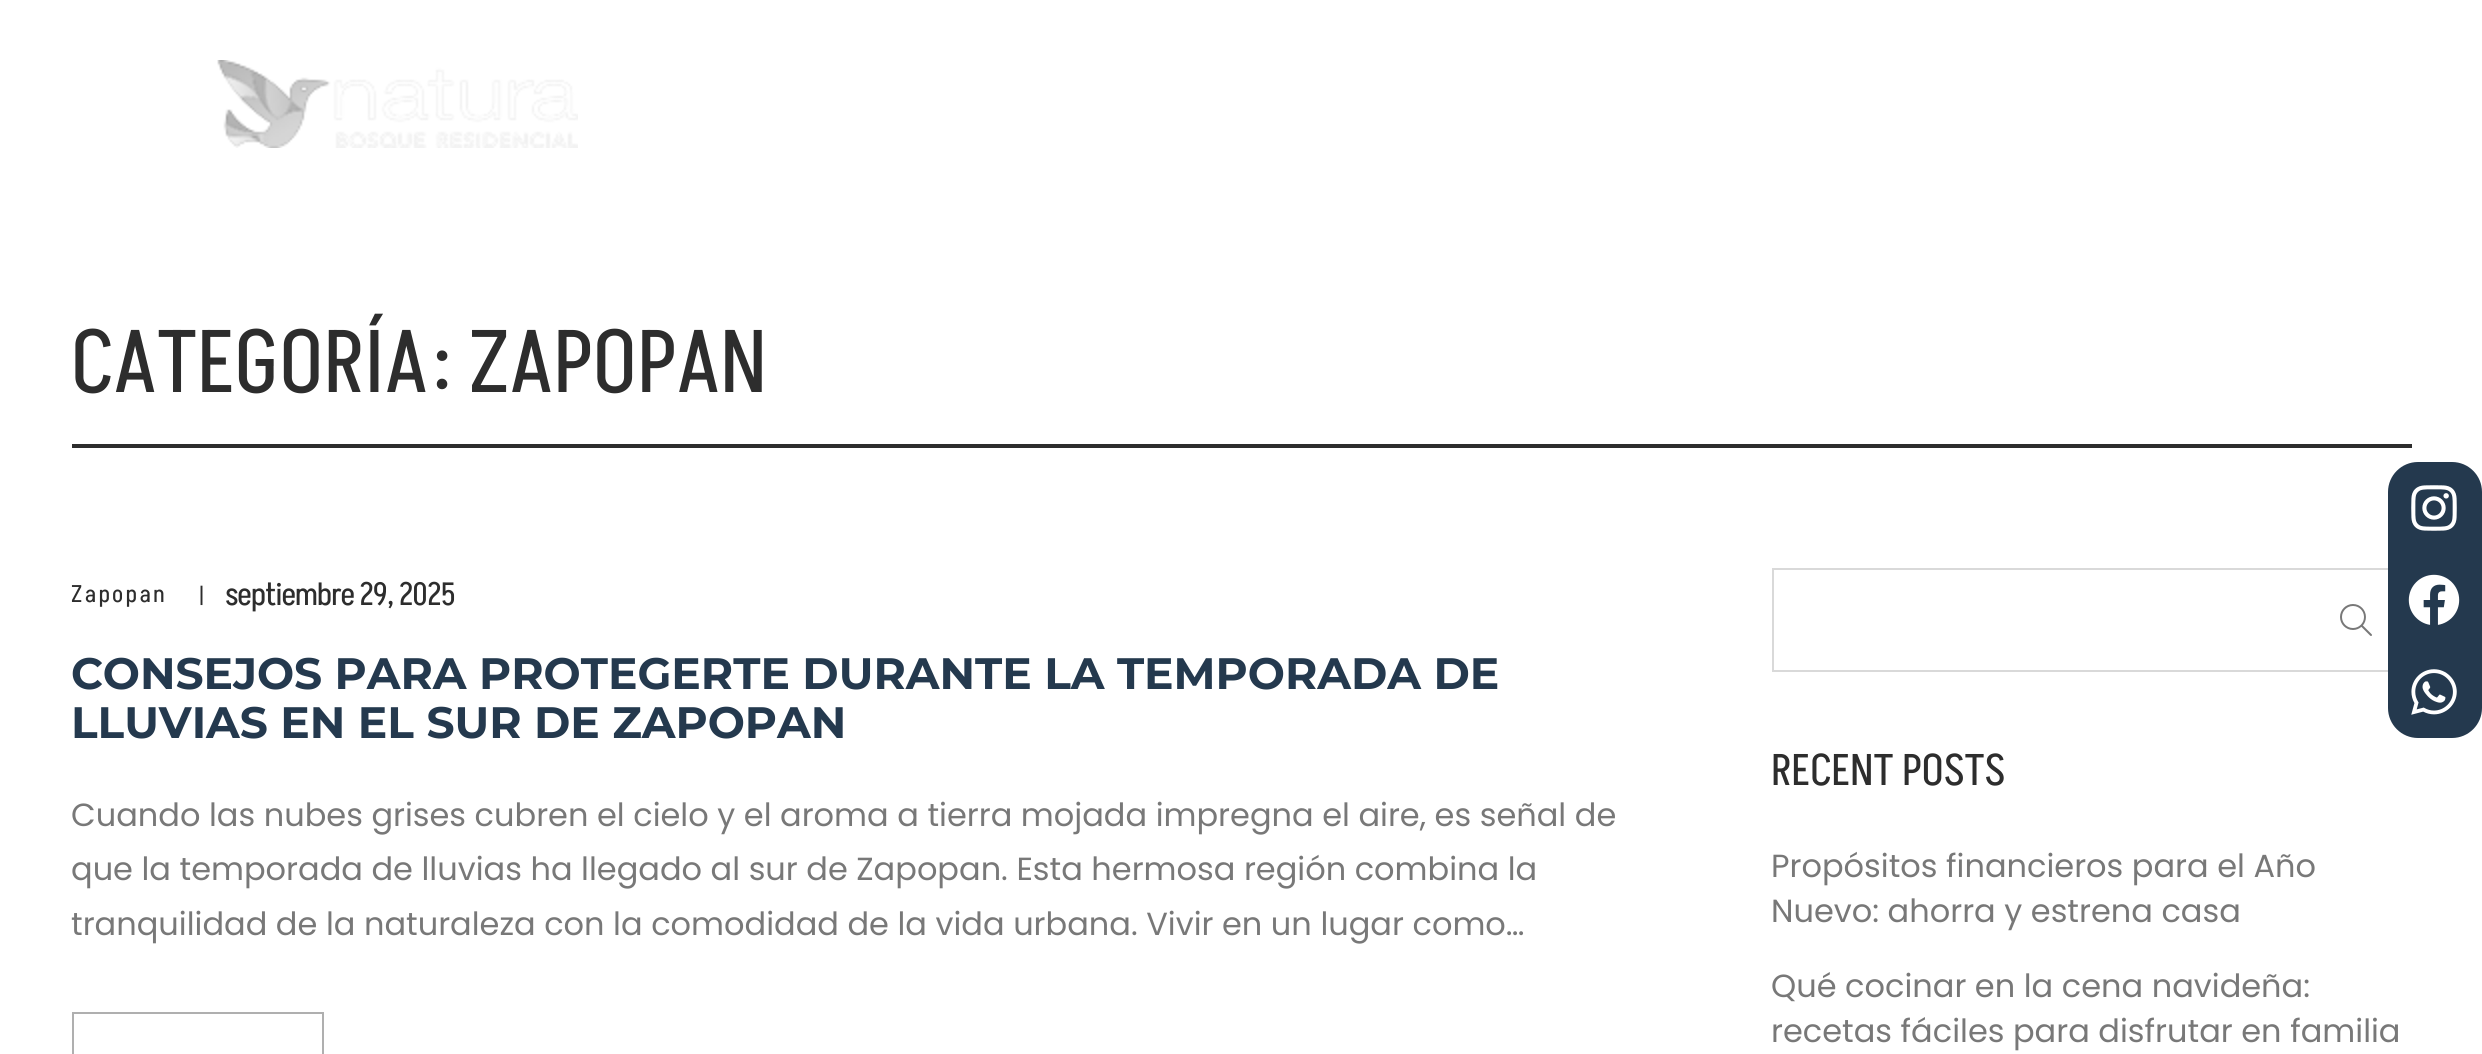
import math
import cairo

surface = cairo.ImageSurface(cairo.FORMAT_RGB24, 2482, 1054)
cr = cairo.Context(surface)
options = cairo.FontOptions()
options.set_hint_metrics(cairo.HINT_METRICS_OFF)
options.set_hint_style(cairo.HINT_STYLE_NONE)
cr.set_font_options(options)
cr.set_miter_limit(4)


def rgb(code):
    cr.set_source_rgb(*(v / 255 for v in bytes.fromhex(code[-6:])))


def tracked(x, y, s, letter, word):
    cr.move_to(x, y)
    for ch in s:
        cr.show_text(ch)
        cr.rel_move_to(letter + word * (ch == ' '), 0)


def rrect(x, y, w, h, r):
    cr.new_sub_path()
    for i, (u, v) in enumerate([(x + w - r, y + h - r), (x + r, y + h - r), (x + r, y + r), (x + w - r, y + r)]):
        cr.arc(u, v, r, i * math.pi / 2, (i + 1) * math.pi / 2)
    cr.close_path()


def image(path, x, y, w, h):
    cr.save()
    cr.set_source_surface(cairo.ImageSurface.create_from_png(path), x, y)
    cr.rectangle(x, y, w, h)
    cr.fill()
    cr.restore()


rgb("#ffffff")
cr.paint()
image("img/1.png", 217, 60, 361, 88)
rgb("#2d2d2d")
cr.rectangle(72, 444, 2340, 4)
cr.fill()
cr.rectangle(73, 1013, 250, 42)
rgb("#afafaf")
cr.stroke()
cr.rectangle(1773, 569, 638, 102)
rgb("#d9d9d9")
cr.stroke()
image("img/2.png", 2340, 604, 32, 32)
rgb("#24394e")
rrect(2388, 462, 94, 276, 30)
cr.fill()
image("img/3.png", 2411, 485, 46, 46)
image("img/4.png", 2408, 574, 52, 51)
image("img/5.png", 2411, 669, 46, 46)
cr.select_font_face("Akshar")
cr.set_font_size(88)
rgb("#2d2d2d")
cr.move_to(71, 392)
cr.show_text("CATEGORÍA: ZAPOPAN")
cr.set_font_size(24)
tracked(71, 602, "Zapopan", 2.5, 0)
cr.set_font_size(22)
tracked(199, 603, "|", -1, 0)
cr.set_font_size(32)
tracked(225, 605, "septiembre 29, 2025", -1, 0)
cr.select_font_face("Montserrat", cairo.FONT_SLANT_NORMAL, cairo.FONT_WEIGHT_BOLD)
cr.set_font_size(44)
rgb("#24394e")
cr.move_to(71, 689)
cr.show_text("CONSEJOS PARA PROTEGERTE DURANTE LA TEMPORADA DE")
cr.move_to(71, 738)
cr.show_text("LLUVIAS EN EL SUR DE ZAPOPAN")
cr.select_font_face("Poppins")
cr.set_font_size(32)
rgb("#787878")
for x, y, s in [
    (71, 826, "Cuando las nubes grises cubren el cielo y el aroma a tierra mojada impregna el aire, es señal de"),
    (71, 880, "que la temporada de lluvias ha llegado al sur de Zapopan. Esta hermosa región combina la"),
    (71, 935, "tranquilidad de la naturaleza con la comodidad de la vida urbana. Vivir en un lugar como…"),
]:
    cr.move_to(x, y)
    cr.show_text(s)
cr.select_font_face("Akshar")
cr.set_font_size(44)
rgb("#2d2d2d")
cr.move_to(1771, 785)
cr.show_text("RECENT POSTS")
cr.select_font_face("Poppins")
cr.set_font_size(32)
rgb("#787878")
for x, y, s in [
    (1771, 877, "Propósitos financieros para el Año"),
    (1771, 922, "Nuevo: ahorra y estrena casa"),
    (1771, 997, "Qué cocinar en la cena navideña:"),
    (1771, 1042, "recetas fáciles para disfrutar en familia"),
]:
    cr.move_to(x, y)
    cr.show_text(s)
surface.write_to_png("page.png")
